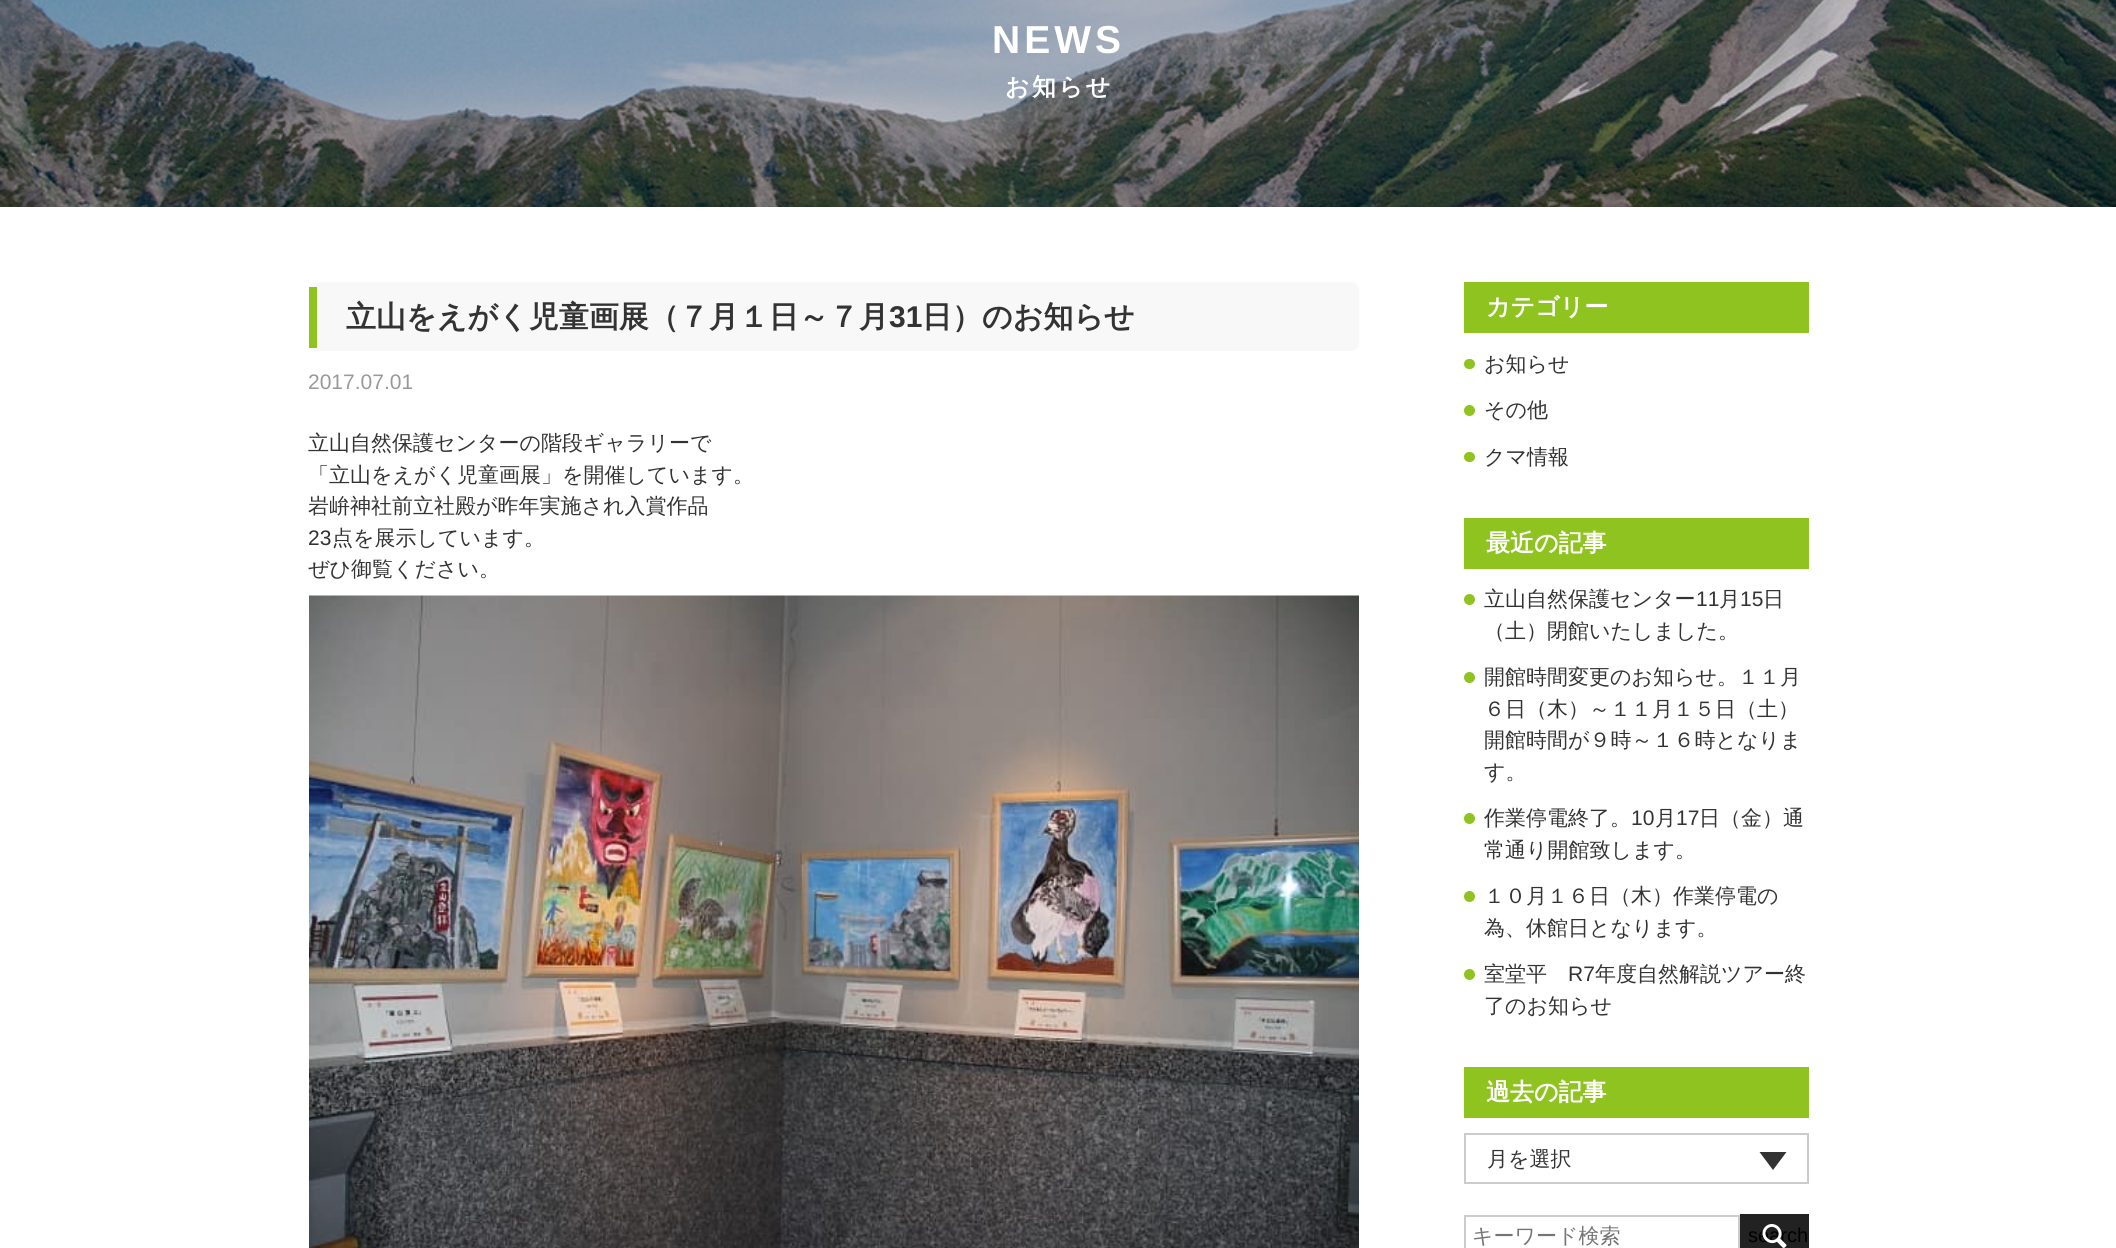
import math
import cairo

surface = cairo.ImageSurface(cairo.FORMAT_RGB24, 2116, 1248)
cr = cairo.Context(surface)
options = cairo.FontOptions()
options.set_hint_metrics(cairo.HINT_METRICS_OFF)
options.set_hint_style(cairo.HINT_STYLE_NONE)
cr.set_font_options(options)
cr.set_miter_limit(4)


def rgb(code):
    cr.set_source_rgb(*(v / 255 for v in bytes.fromhex(code[-6:])))


def tracked(x, y, s, letter, word):
    cr.move_to(x, y)
    for ch in s:
        cr.show_text(ch)
        cr.rel_move_to(letter + word * (ch == ' '), 0)


def rrect(x, y, w, h, r):
    cr.new_sub_path()
    for i, (u, v) in enumerate([(x + w - r, y + h - r), (x + r, y + h - r), (x + r, y + r), (x + w - r, y + r)]):
        cr.arc(u, v, r, i * math.pi / 2, (i + 1) * math.pi / 2)
    cr.close_path()


def image(path, x, y, w, h):
    cr.save()
    cr.set_source_surface(cairo.ImageSurface.create_from_png(path), x, y)
    cr.rectangle(x, y, w, h)
    cr.fill()
    cr.restore()


rgb("#ffffff")
cr.paint()
image("img/1.png", 0, 0, 2116, 207)
rgb("#f8f8f8")
rrect(309, 282, 1050, 69, 8)
cr.fill()
rgb("#8fc31f")
cr.rectangle(309, 287, 8, 61)
cr.fill()
image("img/2.png", 309, 595, 1050, 653)
cr.rectangle(1464, 282, 345, 51)
cr.fill()
rrect(1464, 359, 11, 10, 5)
cr.fill()
cr.arc(1469.5, 410.5, 5.5, 0, 2 * math.pi)
cr.fill()
rrect(1464, 452, 11, 10, 5)
cr.fill()
cr.rectangle(1464, 518, 345, 51)
cr.fill()
cr.arc(1469.5, 599.5, 5.5, 0, 2 * math.pi)
cr.fill()
cr.arc(1469.5, 677.5, 5.5, 0, 2 * math.pi)
cr.fill()
cr.arc(1469.5, 818.5, 5.5, 0, 2 * math.pi)
cr.fill()
cr.arc(1469.5, 896.5, 5.5, 0, 2 * math.pi)
cr.fill()
cr.arc(1469.5, 974.5, 5.5, 0, 2 * math.pi)
cr.fill()
cr.rectangle(1464, 1067, 345, 51)
cr.fill()
cr.rectangle(1465, 1134, 343, 49)
rgb("#cccccc")
cr.stroke()
rgb("#333333")
cr.new_path()
cr.move_to(1759.5, 1152)
cr.line_to(1786.5, 1152)
cr.line_to(1773, 1170)
cr.close_path()
cr.fill()
cr.rectangle(1465, 1216, 274, 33)
rgb("#cccccc")
cr.stroke()
rgb("#222222")
cr.rectangle(1740, 1214, 69, 34)
cr.fill()
cr.select_font_face("Liberation Sans", cairo.FONT_SLANT_NORMAL, cairo.FONT_WEIGHT_BOLD)
cr.set_font_size(39)
rgb("#ffffff")
tracked(992, 53, "NEWS", 4, 0)
cr.select_font_face("WenQuanYi Zen Hei", cairo.FONT_SLANT_NORMAL, cairo.FONT_WEIGHT_BOLD)
cr.set_font_size(24)
tracked(1005, 95, "お知らせ", 2.5, 0)
cr.set_font_size(30)
rgb("#333333")
cr.move_to(346, 327)
cr.show_text("立山をえがく児童画展（７月１日～７月")
cr.select_font_face("Liberation Sans", cairo.FONT_SLANT_NORMAL, cairo.FONT_WEIGHT_BOLD)
cr.move_to(889, 327)
cr.show_text("31")
cr.select_font_face("WenQuanYi Zen Hei", cairo.FONT_SLANT_NORMAL, cairo.FONT_WEIGHT_BOLD)
cr.move_to(922, 327)
cr.show_text("日）のお知らせ")
cr.select_font_face("Liberation Sans")
cr.set_font_size(21)
rgb("#999999")
cr.move_to(308, 389)
cr.show_text("2017.07.01")
cr.select_font_face("WenQuanYi Zen Hei Medium")
rgb("#333333")
for x, y, s in [
    (308, 450, "立山自然保護センターの階段ギャラリーで"),
    (308, 482, "「立山をえがく児童画展」を開催しています。"),
    (308, 513, "岩峅神社前立社殿が昨年実施され入賞作品"),
]:
    cr.move_to(x, y)
    cr.show_text(s)
cr.select_font_face("Liberation Sans")
cr.move_to(308, 545)
cr.show_text("23")
cr.select_font_face("WenQuanYi Zen Hei Medium")
cr.move_to(332, 545)
cr.show_text("点を展示しています。")
cr.move_to(308, 576)
cr.show_text("ぜひ御覧ください。")
cr.select_font_face("WenQuanYi Zen Hei", cairo.FONT_SLANT_NORMAL, cairo.FONT_WEIGHT_BOLD)
cr.set_font_size(24)
rgb("#ffffff")
cr.move_to(1486, 315)
cr.show_text("カテゴリー")
cr.select_font_face("WenQuanYi Zen Hei Medium")
cr.set_font_size(21)
rgb("#333333")
for x, y, s in [
    (1484, 371, "お知らせ"),
    (1484, 417, "その他"),
    (1484, 464, "クマ情報"),
]:
    cr.move_to(x, y)
    cr.show_text(s)
cr.select_font_face("WenQuanYi Zen Hei", cairo.FONT_SLANT_NORMAL, cairo.FONT_WEIGHT_BOLD)
cr.set_font_size(24)
rgb("#ffffff")
cr.move_to(1486, 551)
cr.show_text("最近の記事")
cr.select_font_face("WenQuanYi Zen Hei Medium")
cr.set_font_size(21)
rgb("#333333")
cr.move_to(1484, 606)
cr.show_text("立山自然保護センター")
cr.select_font_face("Liberation Sans")
cr.move_to(1696, 606)
cr.show_text("11")
cr.select_font_face("WenQuanYi Zen Hei Medium")
cr.move_to(1719, 606)
cr.show_text("月")
cr.select_font_face("Liberation Sans")
cr.move_to(1740, 606)
cr.show_text("15")
cr.select_font_face("WenQuanYi Zen Hei Medium")
for x, y, s in [
    (1763, 606, "日"),
    (1484, 638, "（土）閉館いたしました。"),
    (1484, 684, "開館時間変更のお知らせ。１１月"),
    (1484, 716, "６日（木）～１１月１５日（土）"),
    (1484, 747, "開館時間が９時～１６時となりま"),
    (1484, 779, "す。"),
    (1484, 825, "作業停電終了。"),
]:
    cr.move_to(x, y)
    cr.show_text(s)
cr.select_font_face("Liberation Sans")
cr.move_to(1631, 825)
cr.show_text("10")
cr.select_font_face("WenQuanYi Zen Hei Medium")
cr.move_to(1655, 825)
cr.show_text("月")
cr.select_font_face("Liberation Sans")
cr.move_to(1676, 825)
cr.show_text("17")
cr.select_font_face("WenQuanYi Zen Hei Medium")
for x, y, s in [
    (1699, 825, "日（金）通"),
    (1484, 857, "常通り開館致します。"),
    (1484, 903, "１０月１６日（木）作業停電の"),
    (1484, 935, "為、休館日となります。"),
    (1484, 981, "室堂平"),
]:
    cr.move_to(x, y)
    cr.show_text(s)
cr.select_font_face("Liberation Sans")
cr.move_to(1568, 981)
cr.show_text("R7")
cr.select_font_face("WenQuanYi Zen Hei Medium")
cr.move_to(1595, 981)
cr.show_text("年度自然解説ツアー終")
cr.move_to(1484, 1013)
cr.show_text("了のお知らせ")
cr.select_font_face("WenQuanYi Zen Hei", cairo.FONT_SLANT_NORMAL, cairo.FONT_WEIGHT_BOLD)
cr.set_font_size(24)
rgb("#ffffff")
cr.move_to(1486, 1100)
cr.show_text("過去の記事")
cr.select_font_face("WenQuanYi Zen Hei Medium")
cr.set_font_size(21)
rgb("#333333")
cr.move_to(1487, 1166)
cr.show_text("月を選択")
rgb("#757575")
cr.move_to(1472, 1243)
cr.show_text("キーワード検索")
cr.select_font_face("Liberation Sans")
cr.set_font_size(20)
rgb("#000000")
cr.move_to(1748, 1242)
cr.show_text("search")
image("img/3.png", 1762, 1224, 25, 24)
surface.write_to_png("page.png")
